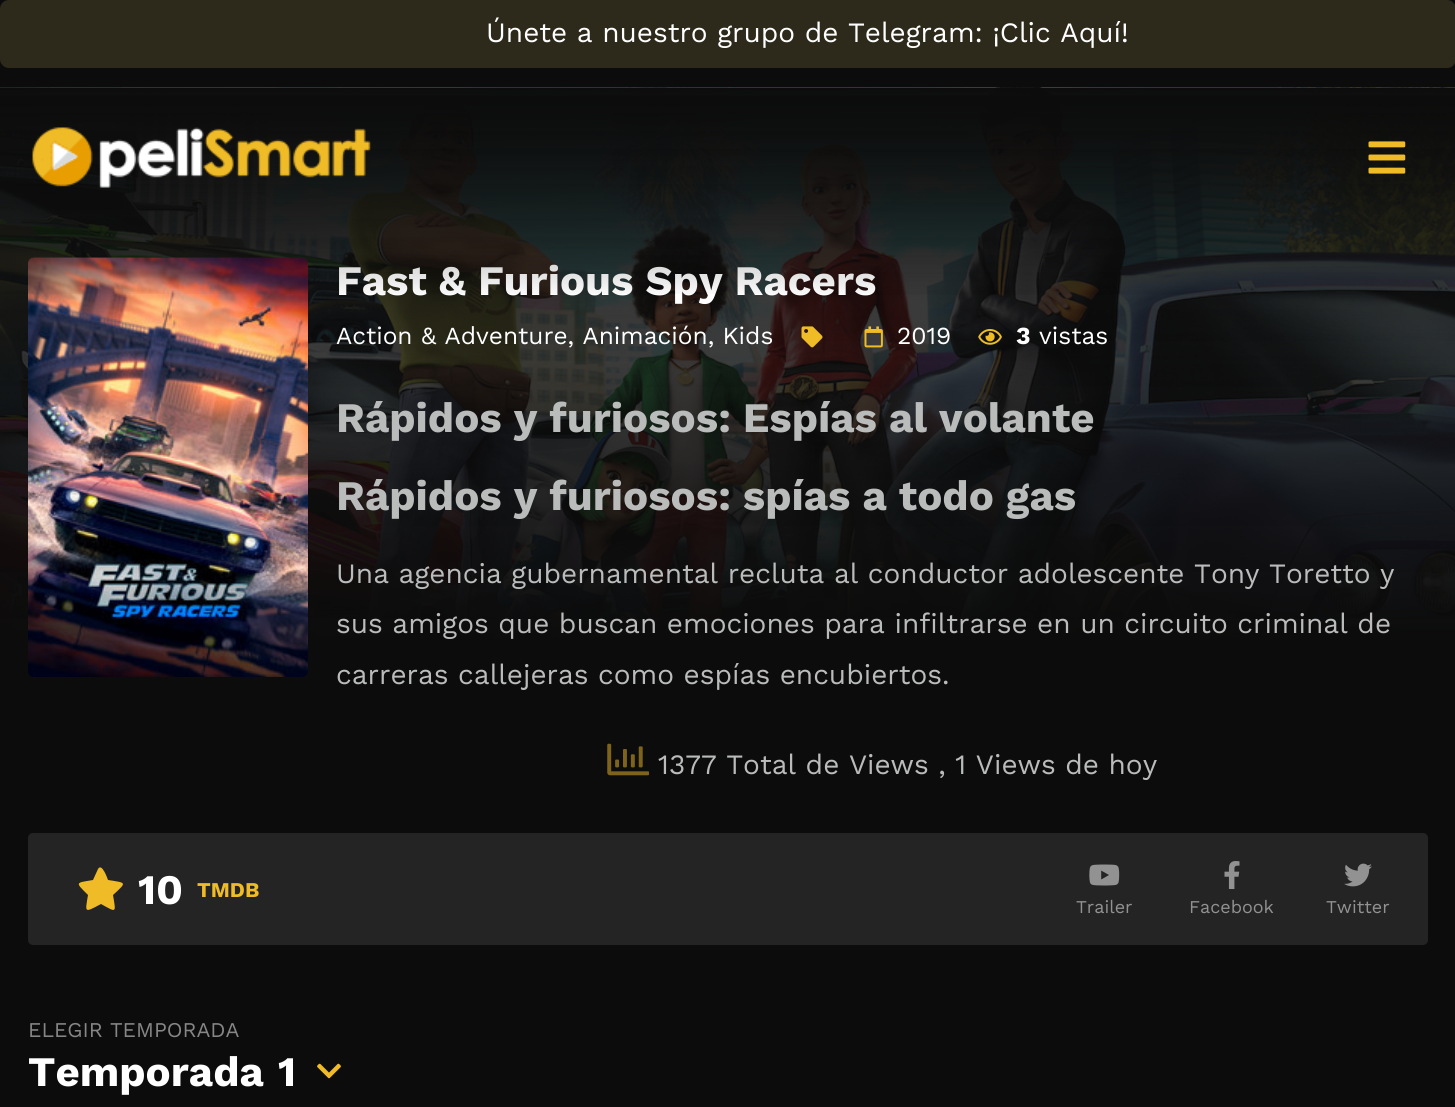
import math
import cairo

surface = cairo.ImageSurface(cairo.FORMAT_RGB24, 1455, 1107)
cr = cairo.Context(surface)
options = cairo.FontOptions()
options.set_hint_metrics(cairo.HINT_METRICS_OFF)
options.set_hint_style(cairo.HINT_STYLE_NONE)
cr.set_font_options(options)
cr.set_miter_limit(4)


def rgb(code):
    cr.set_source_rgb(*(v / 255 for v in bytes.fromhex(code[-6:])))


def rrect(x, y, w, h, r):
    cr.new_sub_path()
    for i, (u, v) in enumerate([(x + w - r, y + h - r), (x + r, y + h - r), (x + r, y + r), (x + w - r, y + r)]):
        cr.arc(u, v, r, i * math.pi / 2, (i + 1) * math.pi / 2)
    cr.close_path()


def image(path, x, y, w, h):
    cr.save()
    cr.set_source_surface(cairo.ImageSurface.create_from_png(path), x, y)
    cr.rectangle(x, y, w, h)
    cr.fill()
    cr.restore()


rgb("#0c0c0c")
cr.paint()
rgb("#2d2a1b")
rrect(0, 0, 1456, 68, 9)
cr.fill()
image("img/1.png", 0, 87, 1455, 551)
gradient = cairo.LinearGradient(728, 87, 728, 368)
gradient.add_color_stop_rgba(0, 0.047, 0.047, 0.047, 1)
gradient.add_color_stop_rgba(1, 0.047, 0.047, 0.047, 0)
cr.set_source(gradient)
cr.rectangle(0, 88, 1455, 273)
cr.fill()
gradient = cairo.LinearGradient(728, 87, 728, 641)
gradient.add_color_stop_rgba(0, 0.047, 0.047, 0.047, 0)
gradient.add_color_stop_rgba(1, 0.047, 0.047, 0.047, 1)
cr.set_source(gradient)
cr.rectangle(0, 148, 1455, 490)
cr.fill()
image("img/4.png", 28, 257, 280, 420)
image("img/5.png", 801, 326, 22, 22)
image("img/6.png", 864, 326, 19, 22)
image("img/7.png", 978, 329, 24, 16)
image("img/8.png", 607, 743, 42, 33)
rgb("#242424")
rrect(28, 833, 1400, 112, 5)
cr.fill()
rgb("#efbb26")
cr.new_path()
cr.move_to(98, 869)
cr.curve_to(102, 862, 108, 880, 108, 880)
cr.curve_to(127, 883, 127, 882, 113, 895)
cr.curve_to(116, 913, 117, 913, 101, 904)
cr.curve_to(84, 913, 85, 913, 88, 895)
cr.curve_to(75, 882, 75, 883, 93, 880)
cr.close_path()
cr.fill()
image("img/9.png", 1089, 864, 31, 22)
image("img/10.png", 1224, 861, 16, 28)
image("img/11.png", 1344, 863, 28, 24)
image("img/12.png", 317, 1063, 24, 16)
cr.select_font_face("Work Sans")
cr.set_font_size(28)
rgb("#ffffff")
cr.move_to(486, 42)
cr.show_text("Únete a nuestro grupo de Telegram: ¡Clic Aquí!")
cr.select_font_face("Work Sans", cairo.FONT_SLANT_NORMAL, cairo.FONT_WEIGHT_BOLD)
cr.set_font_size(42)
cr.move_to(336, 295)
cr.show_text("Fast & Furious Spy Racers")
gradient = cairo.LinearGradient(728, 87, 728, 299)
gradient.add_color_stop_rgba(0, 0.047, 0.047, 0.047, 1)
gradient.add_color_stop_rgba(1, 0.047, 0.047, 0.047, 0)
cr.set_source(gradient)
cr.rectangle(0, 95, 1455, 199)
cr.fill()
image("img/3.png", 1368, 141, 38, 33)
image("img/2.png", 32, 127, 339, 61)
cr.select_font_face("Work Sans")
cr.set_font_size(24.5)
rgb("#ffffff")
cr.move_to(336, 344)
cr.show_text("Action & Adventure, Animación, Kids")
cr.move_to(897, 344)
cr.show_text("2019")
cr.select_font_face("Work Sans", cairo.FONT_SLANT_NORMAL, cairo.FONT_WEIGHT_BOLD)
cr.move_to(1016, 344)
cr.show_text("3")
cr.select_font_face("Work Sans")
cr.move_to(1039, 344)
cr.show_text("vistas")
cr.select_font_face("Work Sans", cairo.FONT_SLANT_NORMAL, cairo.FONT_WEIGHT_BOLD)
cr.set_font_size(42)
rgb("#babbbb")
cr.move_to(336, 432)
cr.show_text("Rápidos y furiosos: Espías al volante")
cr.move_to(336, 510)
cr.show_text("Rápidos y furiosos: spías a todo gas")
cr.select_font_face("Work Sans")
cr.set_font_size(28)
for x, y, s in [
    (336, 583, "Una agencia gubernamental recluta al conductor adolescente Tony Toretto y"),
    (336, 633, "sus amigos que buscan emociones para infiltrarse en un circuito criminal de"),
    (336, 684, "carreras callejeras como espías encubiertos."),
    (658, 774, "1377 Total de Views , 1 Views de hoy"),
]:
    cr.move_to(x, y)
    cr.show_text(s)
cr.select_font_face("Work Sans", cairo.FONT_SLANT_NORMAL, cairo.FONT_WEIGHT_BOLD)
cr.set_font_size(42)
rgb("#ffffff")
cr.move_to(138, 904)
cr.show_text("10")
cr.set_font_size(21)
rgb("#efbb26")
cr.move_to(197, 897)
cr.show_text("TMDB")
cr.select_font_face("Work Sans")
cr.set_font_size(18)
rgb("#929292")
for x, y, s in [
    (1076, 913, "Trailer"),
    (1189, 913, "Facebook"),
    (1326, 913, "Twitter"),
]:
    cr.move_to(x, y)
    cr.show_text(s)
cr.set_font_size(21)
rgb("#868686")
cr.move_to(28, 1037)
cr.show_text("ELEGIR TEMPORADA")
cr.select_font_face("Work Sans", cairo.FONT_SLANT_NORMAL, cairo.FONT_WEIGHT_BOLD)
cr.set_font_size(42)
rgb("#ffffff")
cr.move_to(28, 1086)
cr.show_text("Temporada")
cr.move_to(278, 1086)
cr.show_text("1")
surface.write_to_png("page.png")
